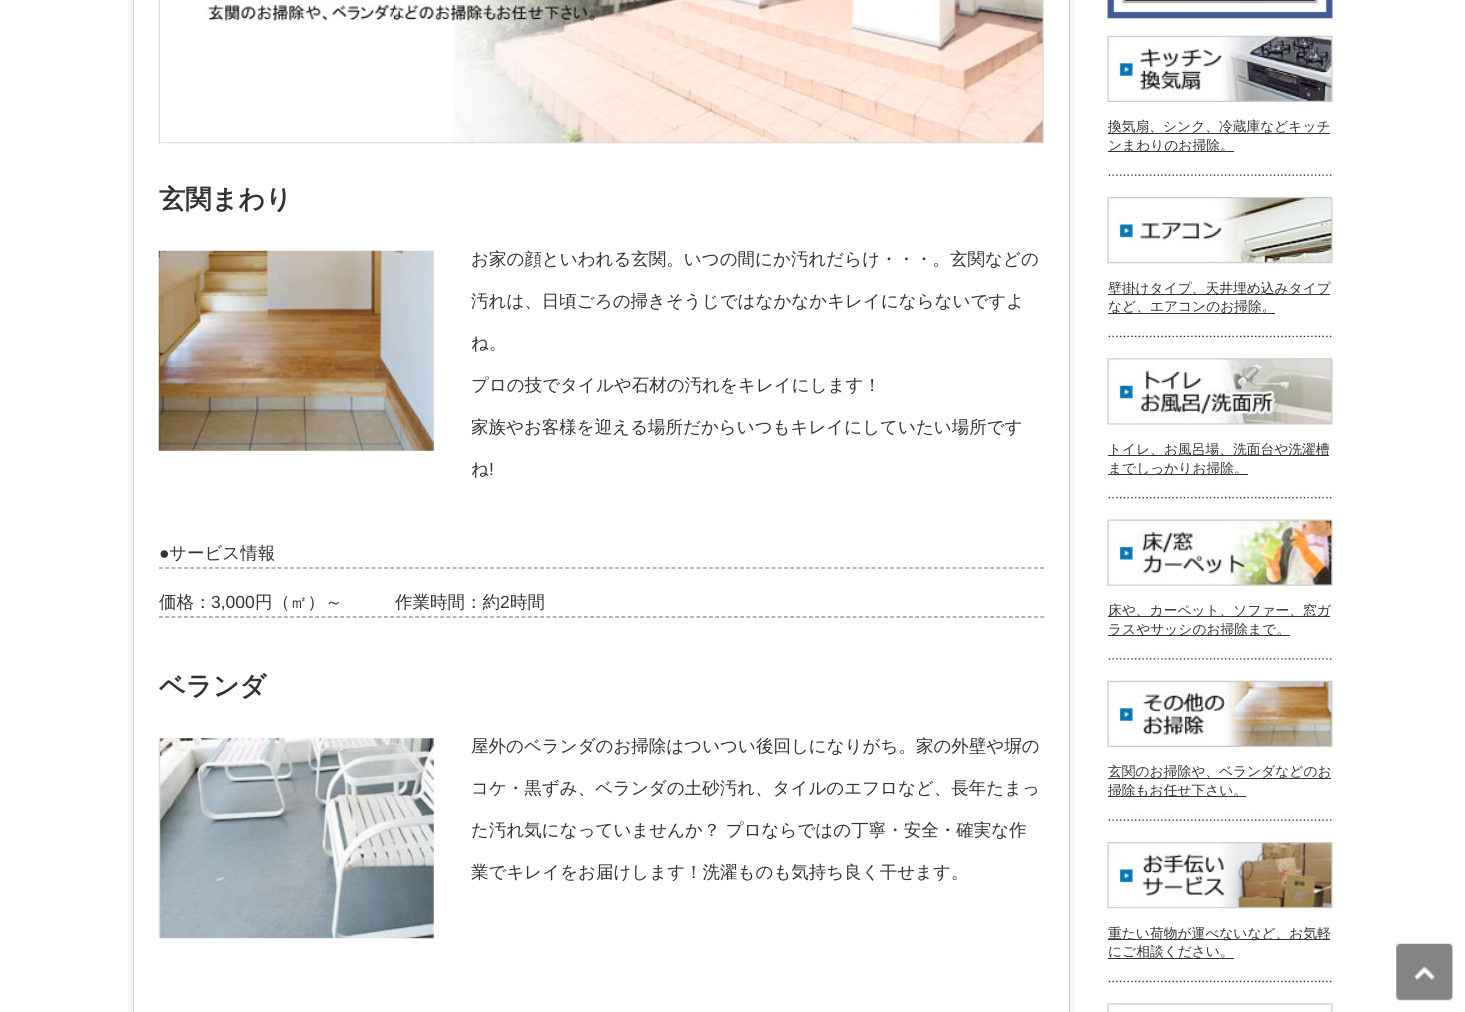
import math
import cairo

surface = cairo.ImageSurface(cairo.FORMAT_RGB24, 1465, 1012)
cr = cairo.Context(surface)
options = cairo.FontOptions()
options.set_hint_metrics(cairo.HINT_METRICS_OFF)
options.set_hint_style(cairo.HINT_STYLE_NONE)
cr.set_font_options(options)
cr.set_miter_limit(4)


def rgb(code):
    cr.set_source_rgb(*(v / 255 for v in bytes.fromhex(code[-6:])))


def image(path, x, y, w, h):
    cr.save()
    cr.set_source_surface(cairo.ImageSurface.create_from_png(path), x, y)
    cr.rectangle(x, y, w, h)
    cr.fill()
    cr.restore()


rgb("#ffffff")
cr.paint()
cr.rectangle(130.5, -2.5, 942, 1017)
rgb("#f7f7f7")
cr.set_line_width(5)
cr.stroke()
cr.rectangle(133.5, -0.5, 936, 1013)
rgb("#cccccc")
cr.set_line_width(1)
cr.stroke()
image("img/1.png", 158, 0, 886, 144)
image("img/2.png", 158, 250, 276, 201)
cr.new_path()
cr.move_to(159, 568)
cr.line_to(1044, 568)
rgb("#838282")
cr.set_line_width(1.2)
cr.set_dash([3.75, 2.5])
cr.stroke()
cr.new_path()
cr.move_to(159, 617)
cr.line_to(1044, 617)
cr.stroke()
image("img/3.png", 158, 738, 276, 201)
image("img/4.png", 1107, 0, 226, 19)
image("img/5.png", 1107, 35, 226, 67)
rgb("#333333")
cr.rectangle(1108, 133, 222, 1)
cr.fill()
cr.rectangle(1108, 151, 126, 1)
cr.fill()
image("img/6.png", 1107, 169, 225, 8)
image("img/7.png", 1107, 197, 226, 67)
cr.rectangle(1108, 294, 222, 1)
cr.fill()
cr.rectangle(1108, 313, 167, 1)
cr.fill()
image("img/8.png", 1107, 331, 225, 7)
image("img/9.png", 1107, 358, 226, 67)
cr.rectangle(1108, 455, 221, 1)
cr.fill()
cr.rectangle(1108, 474, 140, 1)
cr.fill()
image("img/10.png", 1107, 491, 225, 9)
image("img/11.png", 1107, 519, 226, 67)
cr.rectangle(1108, 616, 222, 1)
cr.fill()
cr.rectangle(1108, 635, 182, 1)
cr.fill()
image("img/12.png", 1107, 652, 225, 9)
image("img/13.png", 1107, 680, 226, 67)
cr.rectangle(1108, 778, 223, 1)
cr.fill()
cr.rectangle(1108, 796, 138, 1)
cr.fill()
image("img/6.png", 1107, 814, 225, 8)
image("img/14.png", 1107, 842, 226, 67)
cr.rectangle(1108, 939, 222, 1)
cr.fill()
cr.rectangle(1108, 958, 126, 1)
cr.fill()
image("img/8.png", 1107, 976, 225, 7)
image("img/15.png", 1107, 1003, 226, 9)
image("img/16.png", 1396, 943, 58, 58)
cr.select_font_face("WenQuanYi Zen Hei", cairo.FONT_SLANT_NORMAL, cairo.FONT_WEIGHT_BOLD)
cr.set_font_size(26.25)
cr.move_to(159, 208)
cr.show_text("玄関まわり")
cr.select_font_face("WenQuanYi Zen Hei Medium")
cr.set_font_size(17.5)
for x, y, s in [
    (471, 265, "お家の顔といわれる玄関。いつの間にか汚れだらけ・・・。玄関などの"),
    (471, 307, "汚れは、日頃ごろの掃きそうじではなかなかキレイにならないですよ"),
    (471, 349, "ね。"),
    (471, 391, "プロの技でタイルや石材の汚れをキレイにします！"),
    (471, 433, "家族やお客様を迎える場所だからいつもキレイにしていたい場所です"),
    (471, 475, "ね"),
]:
    cr.move_to(x, y)
    cr.show_text(s)
cr.select_font_face("Liberation Sans")
cr.move_to(489, 475)
cr.show_text("!")
cr.move_to(159, 559)
cr.show_text("●")
cr.select_font_face("WenQuanYi Zen Hei Medium")
cr.move_to(169, 559)
cr.show_text("サービス情報")
cr.move_to(159, 608)
cr.show_text("価格：")
cr.select_font_face("Liberation Sans")
cr.move_to(211, 608)
cr.show_text("3,000")
cr.select_font_face("WenQuanYi Zen Hei Medium")
cr.move_to(255, 608)
cr.show_text("円（㎡）～")
cr.move_to(395, 608)
cr.show_text("作業時間：約")
cr.select_font_face("Liberation Sans")
cr.move_to(500, 608)
cr.show_text("2")
cr.select_font_face("WenQuanYi Zen Hei Medium")
cr.move_to(510, 608)
cr.show_text("時間")
cr.select_font_face("WenQuanYi Zen Hei", cairo.FONT_SLANT_NORMAL, cairo.FONT_WEIGHT_BOLD)
cr.set_font_size(26.25)
cr.move_to(159, 695)
cr.show_text("ベランダ")
cr.select_font_face("WenQuanYi Zen Hei Medium")
cr.set_font_size(17.5)
for x, y, s in [
    (471, 752, "屋外のベランダのお掃除はついつい後回しになりがち。家の外壁や塀の"),
    (471, 794, "コケ・黒ずみ、ベランダの土砂汚れ、タイルのエフロなど、長年たまっ"),
    (471, 836, "た汚れ気になっていませんか？ プロならではの丁寧・安全・確実な作"),
    (471, 878, "業でキレイをお届けします！洗濯ものも気持ち良く干せます。"),
]:
    cr.move_to(x, y)
    cr.show_text(s)
cr.set_font_size(13.75)
for x, y, s in [
    (1108, 131, "換気扇、シンク、冷蔵庫などキッチ"),
    (1108, 150, "ンまわりのお掃除。"),
    (1108, 293, "壁掛けタイプ、天井埋め込みタイプ"),
    (1108, 311, "など、エアコンのお掃除。"),
    (1108, 454, "トイレ、お風呂場、洗面台や洗濯槽"),
    (1108, 473, "までしっかりお掃除。"),
    (1108, 615, "床や、カーペット、ソファー、窓ガ"),
    (1108, 634, "ラスやサッシのお掃除まで。"),
    (1108, 776, "玄関のお掃除や、ベランダなどのお"),
    (1108, 795, "掃除もお任せ下さい。"),
    (1108, 938, "重たい荷物が運べないなど、お気軽"),
    (1108, 956, "にご相談ください。"),
]:
    cr.move_to(x, y)
    cr.show_text(s)
surface.write_to_png("page.png")
